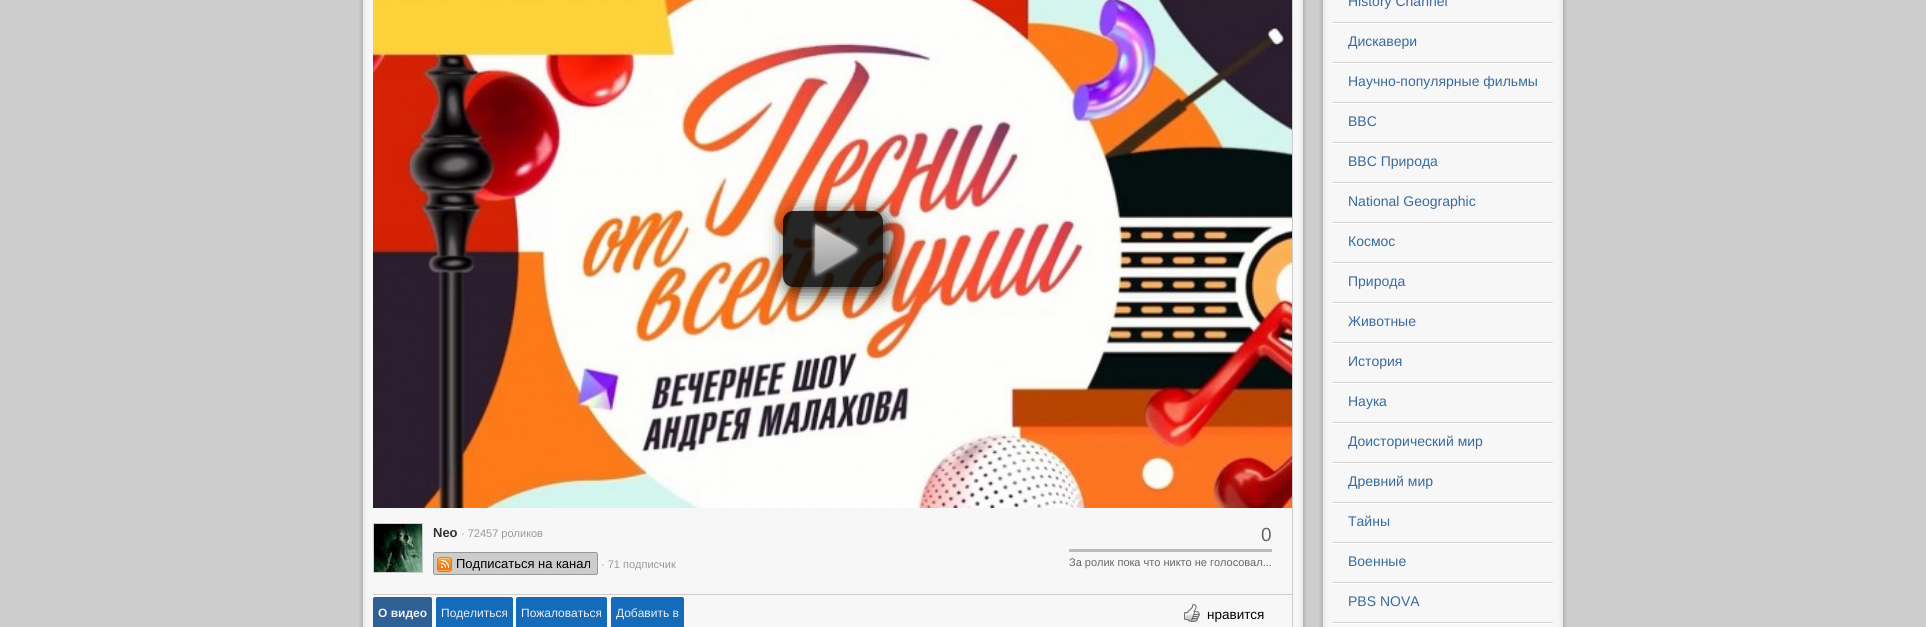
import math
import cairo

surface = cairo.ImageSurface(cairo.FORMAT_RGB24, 1926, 627)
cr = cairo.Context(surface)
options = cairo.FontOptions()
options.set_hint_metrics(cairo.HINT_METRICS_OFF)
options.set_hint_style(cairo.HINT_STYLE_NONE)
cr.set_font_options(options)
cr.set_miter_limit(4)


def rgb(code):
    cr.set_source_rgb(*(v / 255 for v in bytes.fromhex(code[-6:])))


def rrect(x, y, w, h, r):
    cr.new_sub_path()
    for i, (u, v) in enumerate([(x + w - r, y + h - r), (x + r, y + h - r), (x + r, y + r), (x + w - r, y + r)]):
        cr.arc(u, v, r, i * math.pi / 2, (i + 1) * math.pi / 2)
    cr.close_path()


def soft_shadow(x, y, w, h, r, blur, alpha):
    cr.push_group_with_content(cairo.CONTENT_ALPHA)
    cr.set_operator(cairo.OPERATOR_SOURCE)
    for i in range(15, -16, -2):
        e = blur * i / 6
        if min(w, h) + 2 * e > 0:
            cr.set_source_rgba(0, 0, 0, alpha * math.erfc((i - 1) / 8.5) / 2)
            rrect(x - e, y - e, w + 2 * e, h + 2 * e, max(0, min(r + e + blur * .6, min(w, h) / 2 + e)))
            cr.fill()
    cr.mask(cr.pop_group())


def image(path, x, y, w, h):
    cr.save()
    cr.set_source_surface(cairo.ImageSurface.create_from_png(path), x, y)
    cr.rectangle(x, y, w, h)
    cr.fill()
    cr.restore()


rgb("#cdcdcd")
cr.paint()
image("img/1.png", 1293, 0, 14, 627)
image("img/2.png", 359, 0, 933, 627)
image("img/3.png", 373, 0, 919, 508)
cr.save()
cr.set_fill_rule(cairo.FILL_RULE_EVEN_ODD)
cr.new_path()
cr.move_to(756, 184)
cr.line_to(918, 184)
cr.line_to(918, 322)
cr.line_to(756, 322)
cr.close_path()
cr.move_to(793, 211)
cr.line_to(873, 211)
cr.curve_to(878.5, 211, 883, 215.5, 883, 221)
cr.line_to(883, 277)
cr.curve_to(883, 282.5, 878.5, 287, 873, 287)
cr.line_to(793, 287)
cr.curve_to(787.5, 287, 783, 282.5, 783, 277)
cr.line_to(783, 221)
cr.curve_to(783, 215.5, 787.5, 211, 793, 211)
cr.close_path()
cr.clip()
rgb("#000000")
soft_shadow(787, 215, 100, 76, 10, 10, 0.85)
cr.restore()
cr.set_source_rgba(0, 0, 0, 0.85)
rrect(783, 211, 100, 76, 10)
cr.fill()
image("img/4.png", 811, 221, 50, 58)
cr.rectangle(373.5, 523.5, 49, 49)
rgb("#cccccc")
cr.set_line_width(1)
cr.stroke()
image("img/5.png", 374, 524, 48, 48)
rgb("#bbbbbb")
cr.rectangle(1069, 549, 203, 3)
cr.fill()
rgb("#cccccc")
cr.new_path()
cr.move_to(435, 552)
cr.line_to(591, 552)
cr.line_to(591, 575)
cr.line_to(435, 575)
cr.curve_to(434, 575, 433, 574, 433, 573)
cr.line_to(433, 554)
cr.curve_to(433, 553, 434, 552, 435, 552)
cr.close_path()
cr.fill()
image("img/6.png", 437, 557, 15, 15)
for x, y, w, h, color in [
    (434, 552, 157, 1, "#999999"),
    (434, 574, 157, 1, "#999999"),
    (433, 553, 1, 21, "#999999"),
]:
    rgb(color)
    cr.rectangle(x, y, w, h)
    cr.fill()
rgb("#cccccc")
cr.new_path()
cr.move_to(591, 552)
cr.line_to(596, 552)
cr.curve_to(597, 552, 598, 553, 598, 554)
cr.line_to(598, 573)
cr.curve_to(598, 574, 597, 575, 596, 575)
cr.line_to(591, 575)
cr.close_path()
cr.fill()
for x, y, w, h, color in [
    (591, 552, 6, 1, "#999999"),
    (597, 553, 1, 21, "#999999"),
    (591, 574, 6, 1, "#999999"),
    (373, 594, 919, 1, "#cccccc"),
]:
    rgb(color)
    cr.rectangle(x, y, w, h)
    cr.fill()
rgb("#2f6095")
rrect(373.5, 597.5, 58, 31, 1.5)
cr.fill_preserve()
cr.stroke()
rgb("#136bb9")
rrect(436.5, 597.5, 76, 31, 1.5)
cr.fill_preserve()
cr.stroke()
rrect(516.5, 597.5, 90, 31, 1.5)
cr.fill_preserve()
cr.stroke()
rrect(611.5, 597.5, 72, 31, 1.5)
cr.fill_preserve()
cr.stroke()
image("img/7.png", 1184, 604, 16, 18)
image("img/1.png", 1553, 0, 14, 627)
image("img/8.png", 1319, 0, 234, 627)
image("img/9.png", 1333, 22, 220, 2)
image("img/9.png", 1333, 62, 220, 2)
image("img/9.png", 1333, 102, 220, 2)
image("img/9.png", 1333, 142, 220, 2)
image("img/9.png", 1333, 182, 220, 2)
image("img/9.png", 1333, 222, 220, 2)
image("img/9.png", 1333, 262, 220, 2)
image("img/9.png", 1333, 302, 220, 2)
image("img/9.png", 1333, 342, 220, 2)
image("img/9.png", 1333, 382, 220, 2)
image("img/9.png", 1333, 422, 220, 2)
image("img/9.png", 1333, 462, 220, 2)
image("img/9.png", 1333, 502, 220, 2)
image("img/9.png", 1333, 542, 220, 2)
image("img/9.png", 1333, 582, 220, 2)
image("img/9.png", 1333, 622, 220, 2)
cr.select_font_face("Liberation Sans", cairo.FONT_SLANT_NORMAL, cairo.FONT_WEIGHT_BOLD)
cr.set_font_size(13)
rgb("#333333")
cr.move_to(433, 537)
cr.show_text("Neo")
cr.select_font_face("Liberation Sans")
cr.set_font_size(11)
rgb("#999999")
cr.move_to(461, 537)
cr.show_text("· 72457 роликов")
cr.set_font_size(19)
rgb("#666666")
cr.move_to(1261, 541)
cr.show_text("0")
cr.set_font_size(11)
cr.move_to(1069, 566)
cr.show_text("За ролик пока что никто не голосовал...")
cr.set_font_size(13)
rgb("#000000")
cr.move_to(456, 568)
cr.show_text("Подписаться на канал")
cr.set_font_size(11)
rgb("#999999")
cr.move_to(601, 568)
cr.show_text("· 71 подписчик")
cr.select_font_face("Liberation Sans", cairo.FONT_SLANT_NORMAL, cairo.FONT_WEIGHT_BOLD)
cr.set_font_size(12)
rgb("#eeeeee")
cr.move_to(378, 617)
cr.show_text("О видео")
cr.select_font_face("Liberation Sans")
for x, y, s in [
    (441, 617, "Поделиться"),
    (521, 617, "Пожаловаться"),
    (616, 617, "Добавить в"),
]:
    cr.move_to(x, y)
    cr.show_text(s)
cr.set_font_size(13.5)
rgb("#000000")
cr.move_to(1207, 619)
cr.show_text("нравится")
cr.set_font_size(14)
rgb("#396a9d")
for x, y, s in [
    (1348, 6, "History Channel"),
    (1348, 46, "Дискавери"),
    (1348, 86, "Научно-популярные фильмы"),
    (1348, 126, "BBC"),
    (1348, 166, "BBC Природа"),
    (1348, 206, "National Geographic"),
    (1348, 246, "Космос"),
    (1348, 286, "Природа"),
    (1348, 326, "Животные"),
    (1348, 366, "История"),
    (1348, 406, "Наука"),
    (1348, 446, "Доисторический мир"),
    (1348, 486, "Древний мир"),
    (1348, 526, "Тайны"),
    (1348, 566, "Военные"),
    (1348, 606, "PBS NOVA"),
]:
    cr.move_to(x, y)
    cr.show_text(s)
surface.write_to_png("page.png")
